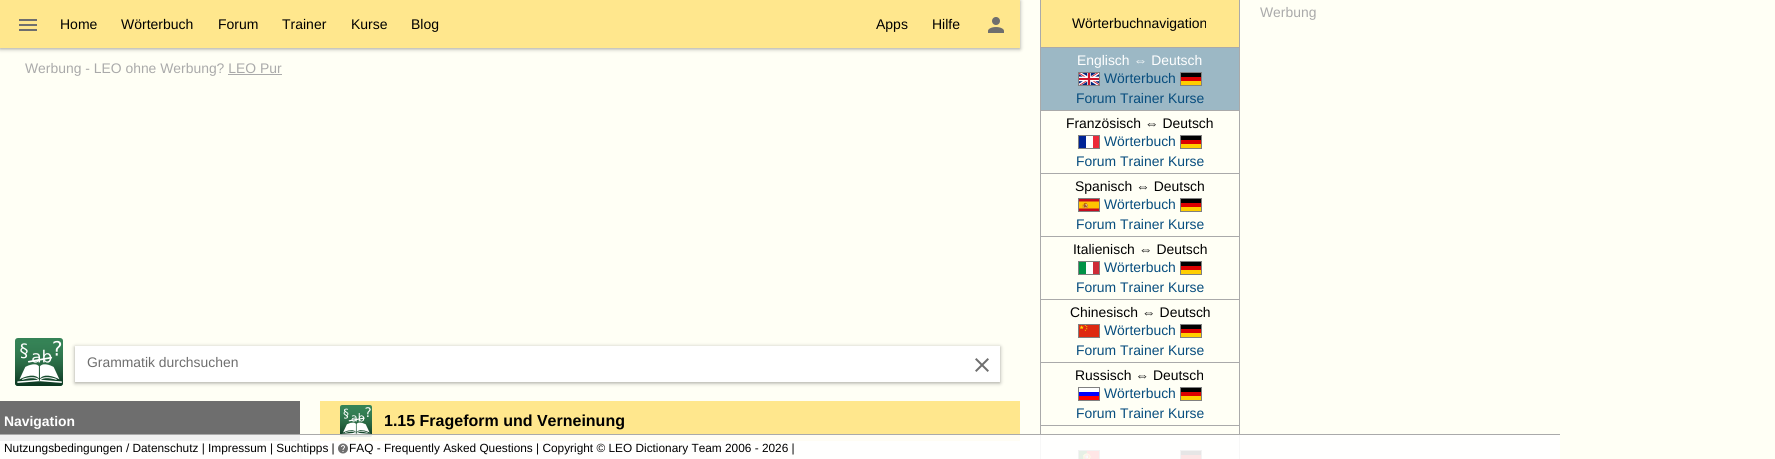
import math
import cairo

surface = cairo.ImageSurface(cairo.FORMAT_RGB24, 1775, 459)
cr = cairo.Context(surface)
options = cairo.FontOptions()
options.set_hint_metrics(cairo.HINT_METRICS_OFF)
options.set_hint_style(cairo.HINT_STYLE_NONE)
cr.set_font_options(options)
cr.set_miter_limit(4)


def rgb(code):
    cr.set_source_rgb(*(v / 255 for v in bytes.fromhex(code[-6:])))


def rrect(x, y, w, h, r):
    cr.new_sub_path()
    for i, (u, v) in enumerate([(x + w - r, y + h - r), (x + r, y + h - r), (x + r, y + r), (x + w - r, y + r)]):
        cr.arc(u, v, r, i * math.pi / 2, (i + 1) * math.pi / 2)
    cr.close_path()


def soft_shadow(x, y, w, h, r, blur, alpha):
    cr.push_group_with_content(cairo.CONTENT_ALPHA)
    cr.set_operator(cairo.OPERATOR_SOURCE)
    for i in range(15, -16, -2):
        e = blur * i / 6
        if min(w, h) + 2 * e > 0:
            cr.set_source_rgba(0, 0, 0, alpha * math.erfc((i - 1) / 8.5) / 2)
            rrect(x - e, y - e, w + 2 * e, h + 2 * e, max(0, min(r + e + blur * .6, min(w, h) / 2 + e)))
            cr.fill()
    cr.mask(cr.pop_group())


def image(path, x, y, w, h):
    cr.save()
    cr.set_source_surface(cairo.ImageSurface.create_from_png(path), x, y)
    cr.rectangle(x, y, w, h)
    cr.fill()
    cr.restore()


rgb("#fffff5")
cr.paint()
rgb("#000000")
soft_shadow(0, 1, 1020, 48, 0, 2, 0.37)
rgb("#ffe78d")
cr.rectangle(0, 0, 1020, 48)
cr.fill()
image("img/1.png", 19, 19, 18, 12)
image("img/2.png", 988, 17, 16, 16)
rgb("#aaaaaa")
cr.rectangle(228, 74, 54, 1)
cr.fill()
image("img/3.png", 15, 338, 48, 48)
rgb("#000000")
soft_shadow(75, 347, 925, 36, 0, 2, 0.37)
rgb("#ffffff")
cr.rectangle(75, 346, 925, 36)
cr.fill()
image("img/4.png", 975, 358, 14, 14)
for x, y, w, h, color in [
    (1041, 0, 198, 47, "#ffe78d"),
    (1239, 0, 1, 47, "#aaaaaa"),
    (1040, 0, 1, 47, "#aaaaaa"),
]:
    rgb(color)
    cr.rectangle(x, y, w, h)
    cr.fill()
cr.rectangle(1040.5, 47.5, 199, 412)
cr.set_line_width(1)
cr.stroke()
rgb("#9cb8c5")
cr.rectangle(1041, 48, 198, 62)
cr.fill()
rgb("#aaaaaa")
cr.rectangle(1041, 110, 198, 1)
cr.fill()
image("img/5.png", 1079, 73, 20, 12)
cr.rectangle(1078.5, 72.5, 21, 13)
rgb("#808080")
cr.stroke()
for x, y, w, h, color in [
    (1180, 73, 22, 4, "#000000"),
    (1180, 77, 22, 4, "#dd0000"),
    (1180, 81, 22, 4, "#ffce00"),
]:
    rgb(color)
    cr.rectangle(x, y, w, h)
    cr.fill()
cr.rectangle(1180.5, 72.5, 21, 13)
rgb("#808080")
cr.stroke()
for x, y, w, h, color in [
    (1041, 173, 198, 1, "#aaaaaa"),
    (1093, 136, 6, 12, "#ed2939"),
    (1086, 136, 7, 12, "#ffffff"),
    (1079, 135, 7, 14, "#002395"),
]:
    rgb(color)
    cr.rectangle(x, y, w, h)
    cr.fill()
cr.rectangle(1078.5, 135.5, 21, 13)
rgb("#808080")
cr.stroke()
for x, y, w, h, color in [
    (1180, 136, 22, 4, "#000000"),
    (1180, 140, 22, 4, "#dd0000"),
    (1180, 144, 22, 4, "#ffce00"),
]:
    rgb(color)
    cr.rectangle(x, y, w, h)
    cr.fill()
cr.rectangle(1180.5, 135.5, 21, 13)
rgb("#808080")
cr.stroke()
rgb("#aaaaaa")
cr.rectangle(1041, 236, 198, 1)
cr.fill()
image("img/6.png", 1079, 199, 20, 12)
cr.rectangle(1078.5, 198.5, 21, 13)
rgb("#808080")
cr.stroke()
for x, y, w, h, color in [
    (1180, 199, 22, 4, "#000000"),
    (1180, 203, 22, 4, "#dd0000"),
    (1180, 207, 22, 4, "#ffce00"),
]:
    rgb(color)
    cr.rectangle(x, y, w, h)
    cr.fill()
cr.rectangle(1180.5, 198.5, 21, 13)
rgb("#808080")
cr.stroke()
for x, y, w, h, color in [
    (1041, 299, 198, 1, "#aaaaaa"),
    (1079, 261, 7, 14, "#009246"),
    (1086, 261, 7, 14, "#ffffff"),
    (1093, 261, 6, 14, "#ce2b37"),
]:
    rgb(color)
    cr.rectangle(x, y, w, h)
    cr.fill()
cr.rectangle(1078.5, 261.5, 21, 13)
rgb("#808080")
cr.stroke()
for x, y, w, h, color in [
    (1180, 262, 22, 4, "#000000"),
    (1180, 266, 22, 4, "#dd0000"),
    (1180, 270, 22, 4, "#ffce00"),
]:
    rgb(color)
    cr.rectangle(x, y, w, h)
    cr.fill()
cr.rectangle(1180.5, 261.5, 21, 13)
rgb("#808080")
cr.stroke()
rgb("#aaaaaa")
cr.rectangle(1041, 362, 198, 1)
cr.fill()
image("img/7.png", 1079, 325, 20, 12)
cr.rectangle(1078.5, 324.5, 21, 13)
rgb("#808080")
cr.stroke()
for x, y, w, h, color in [
    (1180, 325, 22, 4, "#000000"),
    (1180, 329, 22, 4, "#dd0000"),
    (1180, 333, 22, 4, "#ffce00"),
]:
    rgb(color)
    cr.rectangle(x, y, w, h)
    cr.fill()
cr.rectangle(1180.5, 324.5, 21, 13)
rgb("#808080")
cr.stroke()
for x, y, w, h, color in [
    (1041, 425, 198, 1, "#aaaaaa"),
    (1078, 388, 22, 4, "#ffffff"),
    (1078, 396, 22, 4, "#ff0000"),
    (1078, 392, 22, 4, "#0000ff"),
]:
    rgb(color)
    cr.rectangle(x, y, w, h)
    cr.fill()
cr.rectangle(1078.5, 387.5, 21, 13)
rgb("#808080")
cr.stroke()
for x, y, w, h, color in [
    (1180, 388, 22, 4, "#000000"),
    (1180, 392, 22, 4, "#dd0000"),
    (1180, 396, 22, 4, "#ffce00"),
]:
    rgb(color)
    cr.rectangle(x, y, w, h)
    cr.fill()
cr.rectangle(1180.5, 387.5, 21, 13)
rgb("#808080")
cr.stroke()
image("img/8.png", 1079, 451, 20, 8)
cr.rectangle(1078.5, 450.5, 21, 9)
cr.stroke()
rgb("#000000")
cr.rectangle(1180, 451, 22, 4)
cr.fill()
rgb("#dd0000")
cr.rectangle(1180, 455, 22, 4)
cr.fill()
cr.rectangle(1180.5, 450.5, 21, 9)
rgb("#808080")
cr.stroke()
rgb("#6e6e6e")
cr.rectangle(0, 401, 300, 40)
cr.fill()
cr.save()
cr.set_fill_rule(cairo.FILL_RULE_EVEN_ODD)
cr.new_path()
cr.move_to(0, 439)
cr.line_to(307, 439)
cr.line_to(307, 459)
cr.line_to(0, 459)
cr.close_path()
cr.move_to(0, 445)
cr.line_to(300, 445)
cr.line_to(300, 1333)
cr.line_to(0, 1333)
cr.close_path()
cr.clip()
rgb("#000000")
soft_shadow(0, 446, 300, 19, 0, 2, 0.37)
cr.restore()
rgb("#ffe78d")
cr.rectangle(320, 401, 700, 40)
cr.fill()
image("img/9.png", 340, 405, 32, 32)
cr.set_source_rgba(1, 1, 1, 0.9)
cr.rectangle(0, 435, 1560, 24)
cr.fill()
rgb("#aaaaaa")
cr.rectangle(0, 434, 1560, 1)
cr.fill()
image("img/10.png", 338, 443, 10, 11)
cr.select_font_face("Liberation Sans")
cr.set_font_size(13.9)
cr.move_to(1260, 17)
cr.show_text("Werbung")
cr.set_font_size(14)
rgb("#000000")
for x, y, s in [
    (60, 29, "Home"),
    (121, 29, "Wörterbuch"),
    (218, 29, "Forum"),
    (282, 29, "Trainer"),
    (351, 29, "Kurse"),
    (411, 29, "Blog"),
    (876, 29, "Apps"),
    (932, 29, "Hilfe"),
]:
    cr.move_to(x, y)
    cr.show_text(s)
cr.set_font_size(13.9)
rgb("#aaaaaa")
cr.move_to(25, 73)
cr.show_text("Werbung - LEO ohne Werbung? LEO Pur")
rgb("#6e6e6e")
cr.move_to(87, 367)
cr.show_text("Grammatik durchsuchen")
rgb("#000000")
cr.move_to(1072, 28)
cr.show_text("Wörterbuchnavigation")
rgb("#ffffff")
cr.move_to(1077, 65)
cr.show_text("Englisch ⇔ Deutsch")
rgb("#074d7e")
cr.move_to(1104, 83)
cr.show_text("Wörterbuch")
cr.move_to(1076, 103)
cr.show_text("Forum Trainer Kurse")
rgb("#000000")
cr.move_to(1066, 128)
cr.show_text("Französisch ⇔ Deutsch")
rgb("#074d7e")
cr.move_to(1104, 146)
cr.show_text("Wörterbuch")
cr.move_to(1076, 166)
cr.show_text("Forum Trainer Kurse")
rgb("#000000")
cr.move_to(1075, 191)
cr.show_text("Spanisch ⇔ Deutsch")
rgb("#074d7e")
cr.move_to(1104, 209)
cr.show_text("Wörterbuch")
cr.move_to(1076, 229)
cr.show_text("Forum Trainer Kurse")
rgb("#000000")
cr.move_to(1073, 254)
cr.show_text("Italienisch ⇔ Deutsch")
rgb("#074d7e")
cr.move_to(1104, 272)
cr.show_text("Wörterbuch")
cr.move_to(1076, 292)
cr.show_text("Forum Trainer Kurse")
rgb("#000000")
cr.move_to(1070, 317)
cr.show_text("Chinesisch ⇔ Deutsch")
rgb("#074d7e")
cr.move_to(1104, 335)
cr.show_text("Wörterbuch")
cr.move_to(1076, 355)
cr.show_text("Forum Trainer Kurse")
rgb("#000000")
cr.move_to(1075, 380)
cr.show_text("Russisch ⇔ Deutsch")
rgb("#074d7e")
cr.move_to(1104, 398)
cr.show_text("Wörterbuch")
cr.move_to(1076, 418)
cr.show_text("Forum Trainer Kurse")
cr.select_font_face("Liberation Sans", cairo.FONT_SLANT_NORMAL, cairo.FONT_WEIGHT_BOLD)
rgb("#ffffff")
cr.move_to(4, 426)
cr.show_text("Navigation")
cr.set_font_size(16)
rgb("#000000")
cr.move_to(384, 426)
cr.show_text("1.15 Frageform und Verneinung")
cr.select_font_face("Liberation Sans")
cr.set_font_size(11.85)
cr.move_to(4, 452)
cr.show_text("Nutzungsbedingungen / Datenschutz | Impressum | Suchtipps |")
cr.move_to(349, 452)
cr.show_text("FAQ - Frequently Asked Questions | Copyright © LEO Dictionary Team 2006 - 2026 |")
surface.write_to_png("page.png")
